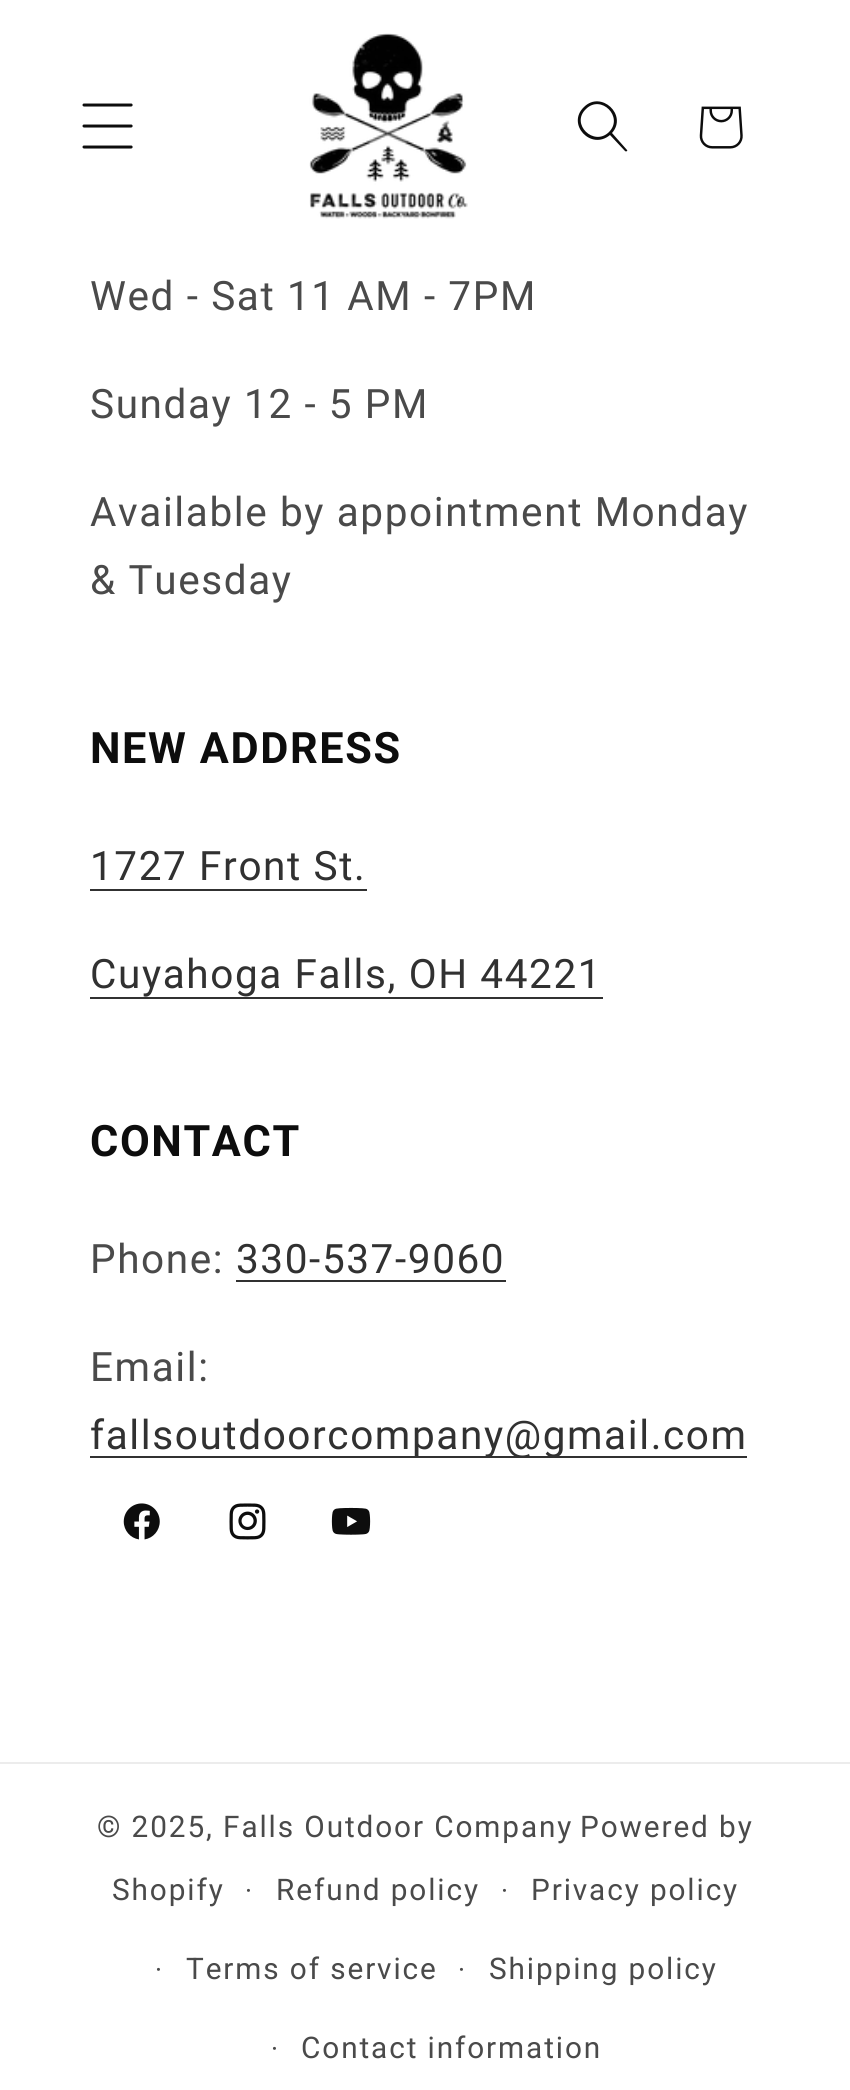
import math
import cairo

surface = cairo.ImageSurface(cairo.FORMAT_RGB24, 850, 2090)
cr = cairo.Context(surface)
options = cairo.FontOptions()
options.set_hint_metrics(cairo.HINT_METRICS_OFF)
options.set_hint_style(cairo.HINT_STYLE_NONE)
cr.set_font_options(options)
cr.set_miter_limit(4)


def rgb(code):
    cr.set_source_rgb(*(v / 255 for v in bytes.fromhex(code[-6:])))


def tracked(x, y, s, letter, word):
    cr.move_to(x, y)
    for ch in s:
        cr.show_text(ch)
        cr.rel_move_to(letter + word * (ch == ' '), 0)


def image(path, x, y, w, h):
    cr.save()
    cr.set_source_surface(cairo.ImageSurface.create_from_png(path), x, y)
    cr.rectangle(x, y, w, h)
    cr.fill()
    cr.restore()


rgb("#ffffff")
cr.paint()
image("img/1.png", 82, 103, 51, 46)
image("img/2.png", 309, 33, 159, 186)
rgb("#0d0d0d")
cr.set_fill_rule(cairo.FILL_RULE_EVEN_ODD)
cr.new_path()
cr.move_to(609, 132)
cr.curve_to(594, 147, 570, 124, 586, 109)
cr.curve_to(601, 94, 624, 117, 609, 132)
cr.move_to(610, 135)
cr.curve_to(591, 151, 566, 124, 584, 107)
cr.curve_to(601, 90, 628, 115, 612, 133)
cr.line_to(627, 150)
cr.curve_to(628, 151, 626, 152, 625, 151)
cr.close_path()
cr.fill()
image("img/3.png", 699, 106, 44, 43)
for x, y, w, h, color in [
    (90, 889, 277, 2, "#313131"),
    (90, 997, 513, 2, "#313131"),
    (236, 1280, 270, 2, "#313131"),
    (90, 1456, 657, 2, "#313131"),
]:
    rgb(color)
    cr.rectangle(x, y, w, h)
    cr.fill()
image("img/4.png", 123, 1503, 37, 37)
image("img/5.png", 229, 1503, 37, 37)
image("img/6.png", 331, 1507, 40, 28)
rgb("#ececec")
cr.rectangle(0, 1762, 850, 2)
cr.fill()
cr.select_font_face("Roboto")
cr.set_font_size(40.5)
rgb("#4a4a4a")
for x, y, s in [
    (90, 310, "Wed - Sat 11 AM - 7PM"),
    (90, 418, "Sunday 12 - 5 PM"),
    (90, 526, "Available by appointment Monday"),
    (90, 594, "& Tuesday"),
]:
    tracked(x, y, s, 1.6, 0)
cr.select_font_face("Roboto", cairo.FONT_SLANT_NORMAL, cairo.FONT_WEIGHT_BOLD)
cr.set_font_size(43.25)
rgb("#0d0d0d")
tracked(90, 763, "NEW ADDRESS", 1.6, 0)
cr.select_font_face("Roboto")
cr.set_font_size(40.5)
rgb("#313131")
tracked(90, 880, "1727 Front St.", 1.6, 0)
tracked(90, 988, "Cuyahoga Falls, OH 44221", 1.6, 0)
cr.select_font_face("Roboto", cairo.FONT_SLANT_NORMAL, cairo.FONT_WEIGHT_BOLD)
cr.set_font_size(43.25)
rgb("#0d0d0d")
tracked(90, 1156, "CONTACT", 1.6, 0)
cr.select_font_face("Roboto")
cr.set_font_size(40.5)
rgb("#4a4a4a")
tracked(90, 1273, "Phone:", 1.6, 0)
rgb("#313131")
tracked(236, 1273, "330-537-9060", 1.6, 0)
rgb("#4a4a4a")
tracked(90, 1381, "Email:", 1.6, 0)
rgb("#313131")
tracked(90, 1449, "fallsoutdoorcompany@gmail.com", 1.6, 0)
cr.set_font_size(29.75)
rgb("#4a4a4a")
for x, y, s in [
    (97, 1837, "© 2025, Falls Outdoor Company"),
    (580, 1837, "Powered by"),
    (112, 1900, "Shopify"),
]:
    tracked(x, y, s, 1.9, 0)
cr.set_font_size(27)
tracked(245, 1900, "·", 1.9, 0)
cr.set_font_size(29.75)
tracked(276, 1900, "Refund policy", 1.9, 0)
cr.set_font_size(27)
tracked(501, 1900, "·", 1.9, 0)
cr.set_font_size(29.75)
tracked(531, 1900, "Privacy policy", 1.9, 0)
cr.set_font_size(27)
tracked(155, 1979, "·", 1.9, 0)
cr.set_font_size(29.75)
tracked(186, 1979, "Terms of service", 1.9, 0)
cr.set_font_size(27)
tracked(458, 1979, "·", 1.9, 0)
cr.set_font_size(29.75)
tracked(489, 1979, "Shipping policy", 1.9, 0)
cr.set_font_size(27)
tracked(271, 2058, "·", 1.9, 0)
cr.set_font_size(29.75)
tracked(301, 2058, "Contact information", 1.9, 0)
surface.write_to_png("page.png")
